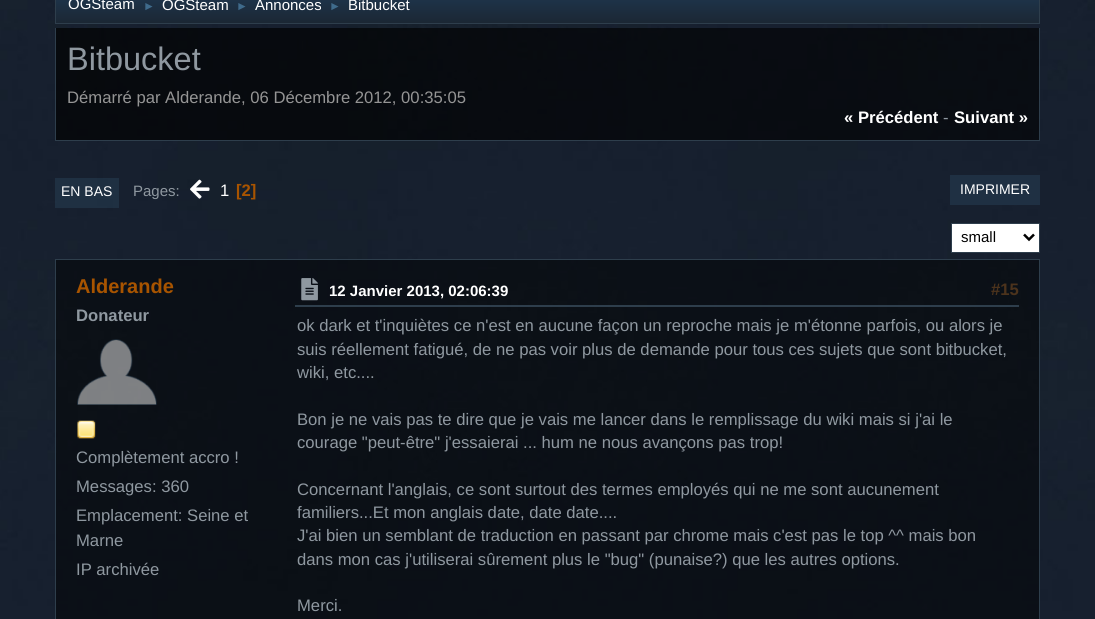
import math
import cairo

surface = cairo.ImageSurface(cairo.FORMAT_RGB24, 1095, 619)
cr = cairo.Context(surface)
options = cairo.FontOptions()
options.set_hint_metrics(cairo.HINT_METRICS_OFF)
options.set_hint_style(cairo.HINT_STYLE_NONE)
cr.set_font_options(options)
cr.set_miter_limit(4)


def rgb(code):
    cr.set_source_rgb(*(v / 255 for v in bytes.fromhex(code[-6:])))


def image(path, x, y, w, h):
    cr.save()
    cr.set_source_surface(cairo.ImageSurface.create_from_png(path), x, y)
    cr.rectangle(x, y, w, h)
    cr.fill()
    cr.restore()


rgb("#ffffff")
cr.paint()
image("img/1.png", 0, 0, 1095, 619)
gradient = cairo.LinearGradient(548, -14, 548, 23)
gradient.add_color_stop_rgba(0, 0.122, 0.224, 0.329, 1)
gradient.add_color_stop_rgba(1, 0.106, 0.153, 0.204, 1)
cr.set_source(gradient)
cr.rectangle(56, 0, 983, 23)
cr.fill()
rgb("#2e3e4c")
cr.rectangle(1039, 0, 1, 24)
cr.rectangle(55, 23, 985, 1)
cr.rectangle(55, 0, 1, 24)
cr.rectangle(1039, 28, 1, 113)
cr.rectangle(55, 140, 985, 1)
cr.rectangle(55, 28, 1, 113)
cr.fill()
cr.set_source_rgba(0.404, 0.757, 0.961, 0.1)
cr.rectangle(55, 178, 64, 30)
cr.fill()
image("img/2.png", 190, 179, 20, 20)
rgb("#1f3043")
cr.rectangle(950, 175, 90, 30)
cr.fill()
rgb("#ffffff")
cr.rectangle(951.5, 223.5, 88, 29)
cr.fill_preserve()
rgb("#2e3e4c")
cr.set_line_width(1)
cr.stroke()
cr.new_path()
cr.move_to(1024, 234.5)
cr.line_to(1029, 239.5)
cr.line_to(1034, 234.5)
rgb("#000000")
cr.set_line_width(2.5)
cr.stroke()
cr.set_source_rgba(0, 0, 0, 0.5)
cr.rectangle(55.5, 259.5, 984, 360)
cr.fill_preserve()
rgb("#2e3e4c")
cr.set_line_width(1)
cr.stroke()
image("img/3.png", 77, 339, 80, 66)
image("img/4.png", 77, 420, 19, 19)
image("img/5.png", 301, 278, 17, 23)
cr.rectangle(295, 305, 724, 2)
cr.fill()
cr.select_font_face("Liberation Sans")
cr.set_font_size(15)
rgb("#ffffff")
cr.move_to(68, 9)
cr.show_text("OGSteam")
cr.set_font_size(12)
rgb("#3f6b8c")
cr.move_to(143, 10)
cr.show_text("►")
cr.set_font_size(15)
rgb("#ffffff")
cr.move_to(162, 10)
cr.show_text("OGSteam")
cr.set_font_size(12)
rgb("#3f6b8c")
cr.move_to(236, 10)
cr.show_text("►")
cr.set_font_size(15)
rgb("#ffffff")
cr.move_to(255, 10)
cr.show_text("Annonces")
cr.set_font_size(12)
rgb("#3f6b8c")
cr.move_to(329, 10)
cr.show_text("►")
cr.set_font_size(15)
rgb("#ffffff")
cr.move_to(348, 10)
cr.show_text("Bitbucket")
cr.set_font_size(32.5)
rgb("#8f98a0")
cr.move_to(67, 70)
cr.show_text("Bitbucket")
cr.set_font_size(16.65)
rgb("#959595")
cr.move_to(67, 103)
cr.show_text("Démarré par Alderande, 06 Décembre 2012, 00:35:05")
cr.select_font_face("Liberation Sans", cairo.FONT_SLANT_NORMAL, cairo.FONT_WEIGHT_BOLD)
rgb("#ffffff")
cr.move_to(844, 123)
cr.show_text("« Précédent")
cr.select_font_face("Liberation Sans")
rgb("#8f98a0")
cr.move_to(943, 123)
cr.show_text("-")
cr.select_font_face("Liberation Sans", cairo.FONT_SLANT_NORMAL, cairo.FONT_WEIGHT_BOLD)
rgb("#ffffff")
cr.move_to(954, 123)
cr.show_text("Suivant »")
cr.select_font_face("Liberation Sans")
cr.set_font_size(14)
cr.move_to(61, 196)
cr.show_text("EN BAS")
cr.set_font_size(15)
rgb("#8f98a0")
cr.move_to(133, 196)
cr.show_text("Pages:")
cr.set_font_size(16.65)
rgb("#ffffff")
cr.move_to(220, 196)
cr.show_text("1")
cr.select_font_face("Liberation Sans", cairo.FONT_SLANT_NORMAL, cairo.FONT_WEIGHT_BOLD)
rgb("#a85400")
cr.move_to(236, 196)
cr.show_text("[2]")
cr.select_font_face("Liberation Sans")
cr.set_font_size(14)
rgb("#ffffff")
cr.move_to(960, 194)
cr.show_text("IMPRIMER")
cr.set_font_size(15)
rgb("#000000")
cr.move_to(961, 242)
cr.show_text("small")
cr.select_font_face("Liberation Sans", cairo.FONT_SLANT_NORMAL, cairo.FONT_WEIGHT_BOLD)
cr.set_font_size(20)
rgb("#a85400")
cr.move_to(76, 293)
cr.show_text("Alderande")
cr.set_font_size(16.65)
rgb("#8f98a0")
cr.move_to(76, 321)
cr.show_text("Donateur")
cr.select_font_face("Liberation Sans")
for x, y, s in [
    (76, 463, "Complètement accro !"),
    (76, 492, "Messages: 360"),
    (76, 521, "Emplacement: Seine et"),
    (76, 546, "Marne"),
    (76, 575, "IP archivée"),
]:
    cr.move_to(x, y)
    cr.show_text(s)
cr.select_font_face("Liberation Sans", cairo.FONT_SLANT_NORMAL, cairo.FONT_WEIGHT_BOLD)
cr.set_font_size(15)
rgb("#ffffff")
cr.move_to(329, 296)
cr.show_text("12 Janvier 2013, 02:06:39")
cr.set_font_size(16.65)
rgb("#4c331c")
cr.move_to(991, 295)
cr.show_text("#15")
cr.select_font_face("Liberation Sans")
rgb("#8f98a0")
for x, y, s in [
    (297, 331, "ok dark et t'inquiètes ce n'est en aucune façon un reproche mais je m'étonne parfois, ou alors je"),
    (297, 355, "suis réellement fatigué, de ne pas voir plus de demande pour tous ces sujets que sont bitbucket,"),
    (297, 378, "wiki, etc...."),
    (297, 425, "Bon je ne vais pas te dire que je vais me lancer dans le remplissage du wiki mais si j'ai le"),
    (297, 448, "courage \"peut-être\" j'essaierai ... hum ne nous avançons pas trop!"),
    (297, 495, "Concernant l'anglais, ce sont surtout des termes employés qui ne me sont aucunement"),
    (297, 518, "familiers...Et mon anglais date, date date...."),
    (297, 541, "J'ai bien un semblant de traduction en passant par chrome mais c'est pas le top ^^ mais bon"),
    (297, 565, "dans mon cas j'utiliserai sûrement plus le \"bug\" (punaise?) que les autres options."),
    (297, 611, "Merci."),
]:
    cr.move_to(x, y)
    cr.show_text(s)
surface.write_to_png("page.png")
